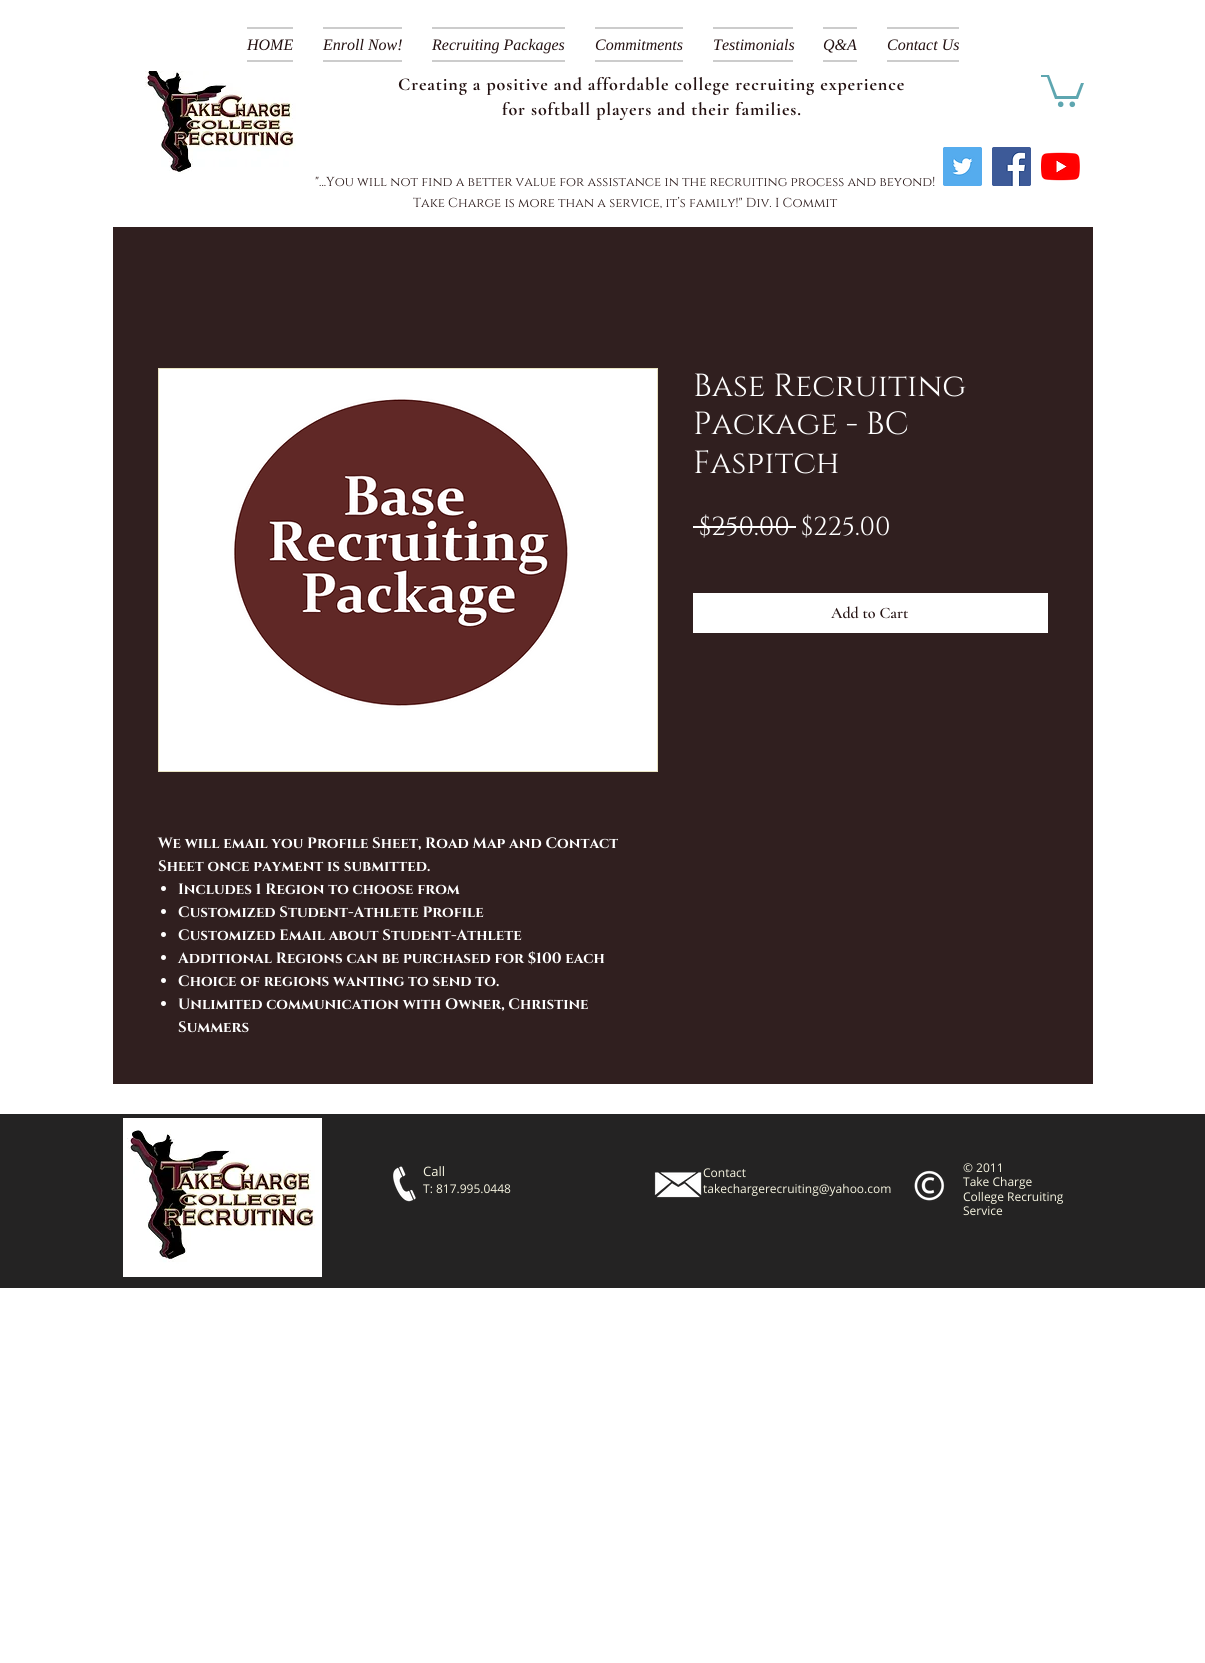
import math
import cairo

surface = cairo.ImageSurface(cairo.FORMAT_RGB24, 1205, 1663)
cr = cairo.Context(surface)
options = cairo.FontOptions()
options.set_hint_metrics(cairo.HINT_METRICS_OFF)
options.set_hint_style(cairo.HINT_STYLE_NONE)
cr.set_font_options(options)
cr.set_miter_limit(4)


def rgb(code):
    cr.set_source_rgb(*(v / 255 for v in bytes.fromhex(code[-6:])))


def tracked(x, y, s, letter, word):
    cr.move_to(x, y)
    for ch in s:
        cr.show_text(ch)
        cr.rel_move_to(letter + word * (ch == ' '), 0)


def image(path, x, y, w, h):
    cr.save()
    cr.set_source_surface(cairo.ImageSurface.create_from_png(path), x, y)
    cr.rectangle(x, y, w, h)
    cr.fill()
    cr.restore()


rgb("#ffffff")
cr.paint()
for x, y, w, h, color in [
    (247, 27, 46, 2, "#cccccc"),
    (247, 60, 46, 2, "#cccccc"),
    (323, 27, 79, 2, "#cccccc"),
    (323, 60, 79, 2, "#cccccc"),
    (432, 27, 133, 2, "#cccccc"),
    (432, 60, 133, 2, "#cccccc"),
    (595, 27, 88, 2, "#cccccc"),
    (595, 60, 88, 2, "#cccccc"),
    (713, 27, 80, 2, "#cccccc"),
    (713, 60, 80, 2, "#cccccc"),
    (823, 27, 34, 2, "#cccccc"),
    (823, 60, 34, 2, "#cccccc"),
    (887, 27, 72, 2, "#cccccc"),
    (887, 60, 72, 2, "#cccccc"),
]:
    rgb(color)
    cr.rectangle(x, y, w, h)
    cr.fill()
image("img/1.png", 145, 71, 151, 103)
rgb("#5ea6b0")
cr.new_path()
cr.move_to(1084, 83)
cr.line_to(1078, 99)
cr.line_to(1055, 99)
cr.line_to(1047, 77)
cr.line_to(1041, 77)
cr.line_to(1041, 75)
cr.line_to(1049, 75)
cr.line_to(1057, 96)
cr.line_to(1076, 96)
cr.line_to(1081, 83)
cr.fill()
cr.arc(1072.3, 104.3, 2.8, 0, 2 * math.pi)
cr.fill()
cr.arc(1060.7, 104.3, 2.8, 0, 2 * math.pi)
cr.fill()
image("img/2.png", 943, 147, 39, 39)
image("img/3.png", 992, 147, 39, 39)
image("img/4.png", 1041, 152, 39, 29)
for x, y, w, h, color in [
    (113, 227, 980, 857, "#301f1f"),
    (693, 526, 103, 2, "#ffffff"),
    (693, 593, 355, 40, "#ffffff"),
]:
    rgb(color)
    cr.rectangle(x, y, w, h)
    cr.fill()
cr.rectangle(158.5, 368.5, 499, 403)
rgb("#e9e3c2")
cr.set_line_width(1)
cr.stroke()
image("img/5.png", 159, 369, 498, 402)
rgb("#ffffff")
cr.arc(163.5, 888.5, 2.5, 0, 2 * math.pi)
cr.fill()
cr.arc(163.5, 911.5, 2.5, 0, 2 * math.pi)
cr.fill()
cr.arc(163.5, 934.5, 2.5, 0, 2 * math.pi)
cr.fill()
cr.arc(163.5, 957.5, 2.5, 0, 2 * math.pi)
cr.fill()
cr.arc(163.5, 980.5, 2.5, 0, 2 * math.pi)
cr.fill()
cr.arc(163.5, 1003.5, 2.5, 0, 2 * math.pi)
cr.fill()
rgb("#242323")
cr.rectangle(0, 1114, 1205, 174)
cr.fill()
image("img/6.png", 123, 1118, 199, 159)
image("img/7.png", 393, 1166, 23, 36)
image("img/8.png", 654, 1172, 48, 26)
image("img/9.png", 914, 1170, 31, 31)
cr.select_font_face("Liberation Serif", cairo.FONT_SLANT_ITALIC)
cr.set_font_size(16)
rgb("#231111")
for x, y, s in [
    (247, 50, "HOME"),
    (323, 50, "Enroll Now!"),
    (432, 50, "Recruiting Packages"),
    (595, 50, "Commitments"),
    (713, 50, "Testimonials"),
    (823, 50, "Q&A"),
    (887, 50, "Contact Us"),
]:
    cr.move_to(x, y)
    cr.show_text(s)
cr.select_font_face("Cormorant Garamond", cairo.FONT_SLANT_NORMAL, cairo.FONT_WEIGHT_BOLD)
cr.set_font_size(18)
tracked(398, 90, "Creating a positive and affordable college recruiting experience", 0.9, 0)
tracked(502, 115, "for softball players and their families.", 0.9, 0)
cr.select_font_face("Cinzel")
cr.set_font_size(13)
cr.move_to(315, 186)
cr.show_text("\"...You will not find a better value for assistance in the recruiting process and beyond!")
cr.move_to(413, 207)
cr.show_text("Take Charge is more than a service, it’s family!\" Div. I Commit")
cr.set_font_size(32)
rgb("#ffffff")
for x, y, s in [
    (693, 396, "Base Recruiting"),
    (693, 434, "Package - BC"),
    (693, 473, "Faspitch"),
]:
    cr.move_to(x, y)
    cr.show_text(s)
cr.set_font_size(26)
cr.move_to(699, 535)
cr.show_text("$250.00")
cr.move_to(801, 535)
cr.show_text("$225.00")
cr.select_font_face("Cormorant Garamond SemiBold")
cr.set_font_size(16)
rgb("#231111")
cr.move_to(831, 618)
cr.show_text("Add to Cart")
cr.select_font_face("Cinzel", cairo.FONT_SLANT_NORMAL, cairo.FONT_WEIGHT_BOLD)
cr.set_font_size(15)
rgb("#ffffff")
for x, y, s in [
    (158, 848, "We will email you Profile Sheet, Road Map and Contact"),
    (158, 871, "Sheet once payment is submitted."),
    (178, 894, "Includes 1 Region to choose from"),
    (178, 917, "Customized Student-Athlete Profile"),
    (178, 940, "Customized Email about Student-Athlete"),
    (178, 963, "Additional Regions can be purchased for $100 each"),
    (178, 986, "Choice of regions wanting to send to."),
    (178, 1009, "Unlimited communication with Owner, Christine"),
    (178, 1032, "Summers"),
]:
    cr.move_to(x, y)
    cr.show_text(s)
cr.select_font_face("Open Sans")
cr.set_font_size(13)
rgb("#f7f5e1")
cr.move_to(423, 1176)
cr.show_text("Call")
cr.set_font_size(12)
for x, y, s in [
    (423, 1193, "T: 817.995.0448"),
    (703, 1177, "Contact"),
    (703, 1193, "takechargerecruiting@yahoo.com"),
    (963, 1172, "© 2011"),
    (963, 1186, "Take Charge"),
    (963, 1201, "College Recruiting"),
    (963, 1215, "Service"),
]:
    cr.move_to(x, y)
    cr.show_text(s)
surface.write_to_png("page.png")
